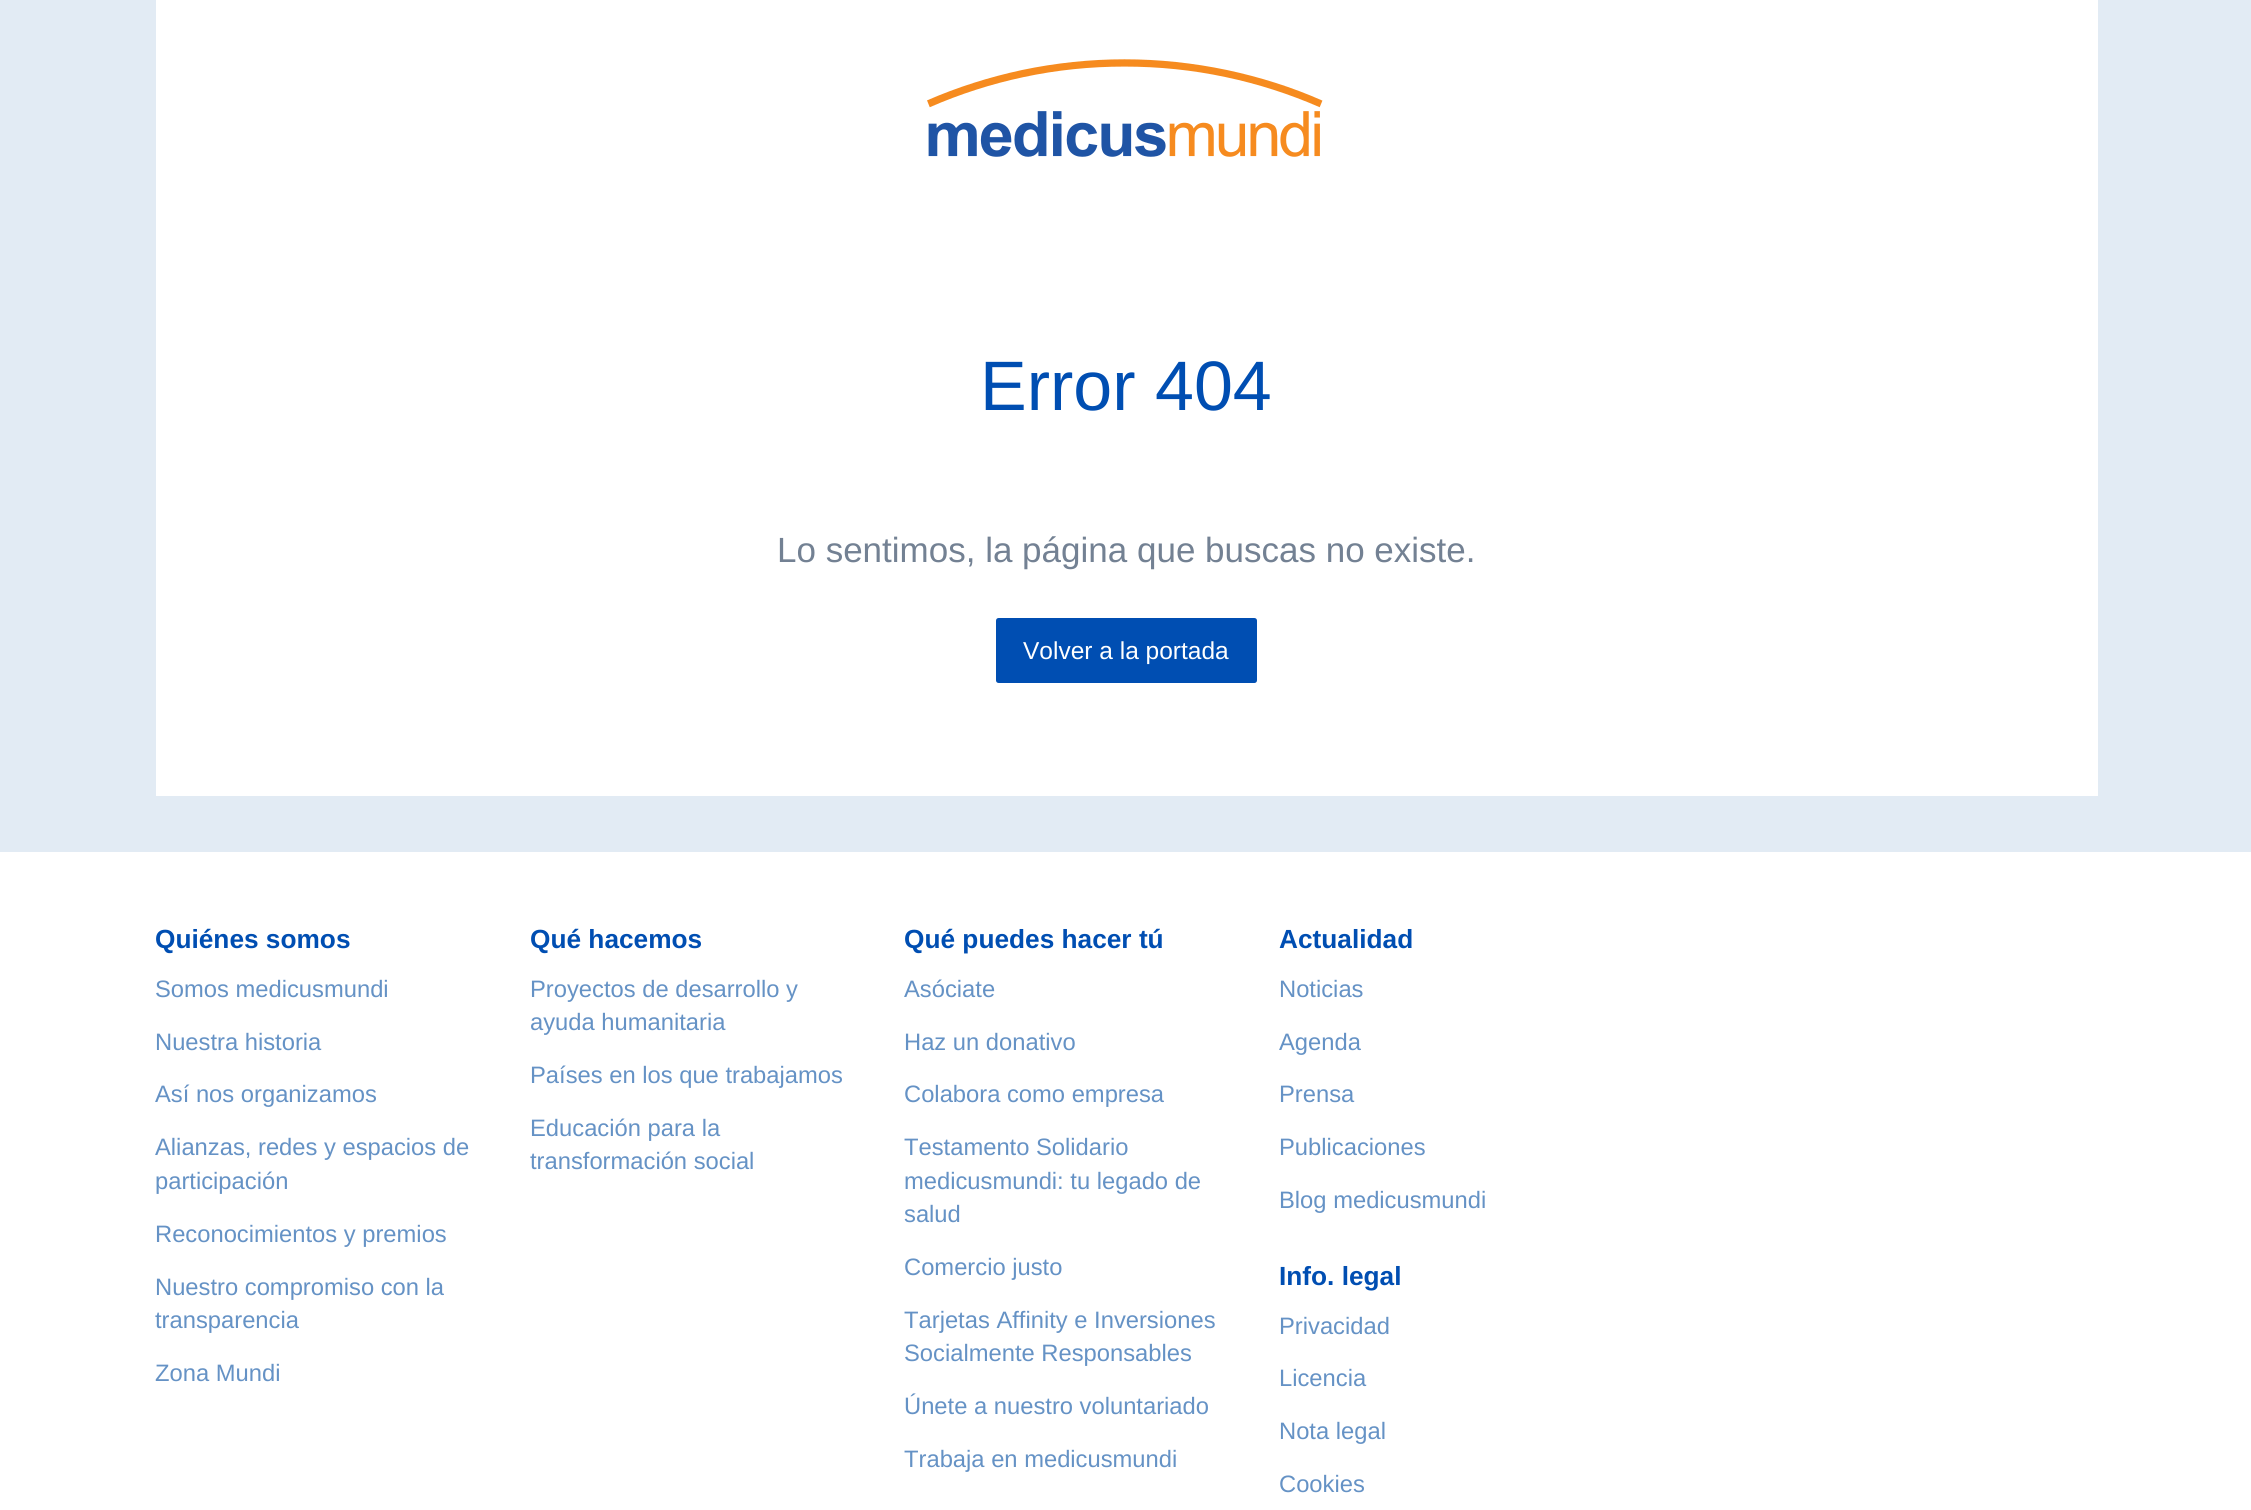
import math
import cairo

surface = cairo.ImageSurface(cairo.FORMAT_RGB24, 2251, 1510)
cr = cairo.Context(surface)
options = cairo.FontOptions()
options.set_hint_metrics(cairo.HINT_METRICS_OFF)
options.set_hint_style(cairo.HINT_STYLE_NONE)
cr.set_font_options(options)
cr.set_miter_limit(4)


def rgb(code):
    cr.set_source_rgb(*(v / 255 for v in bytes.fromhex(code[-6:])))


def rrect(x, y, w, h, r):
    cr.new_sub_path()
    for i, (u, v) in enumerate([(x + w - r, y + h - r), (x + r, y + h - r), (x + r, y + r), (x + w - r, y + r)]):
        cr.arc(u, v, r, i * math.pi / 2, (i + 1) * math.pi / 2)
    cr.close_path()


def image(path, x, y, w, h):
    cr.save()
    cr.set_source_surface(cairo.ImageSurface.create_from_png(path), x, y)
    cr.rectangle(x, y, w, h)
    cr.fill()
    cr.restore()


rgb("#e2ebf4")
cr.paint()
rgb("#ffffff")
cr.rectangle(156, 0, 1942, 796)
cr.fill()
image("img/1.png", 927, 59, 396, 98)
rgb("#004eb2")
rrect(998, 620, 257, 61, 0.5)
cr.fill_preserve()
cr.set_line_width(4)
cr.stroke()
rgb("#ffffff")
cr.rectangle(0, 852, 2251, 658)
cr.fill()
cr.select_font_face("Liberation Sans")
cr.set_font_size(70)
rgb("#004eb2")
cr.move_to(980, 410)
cr.show_text("Error 404")
cr.set_font_size(35)
rgb("#738193")
cr.move_to(777, 562)
cr.show_text("Lo sentimos, la página que buscas no existe.")
cr.set_font_size(24.5)
rgb("#ffffff")
cr.move_to(1023, 659)
cr.show_text("Volver a la portada")
cr.select_font_face("Liberation Sans", cairo.FONT_SLANT_NORMAL, cairo.FONT_WEIGHT_BOLD)
cr.set_font_size(26.25)
rgb("#004eb2")
cr.move_to(155, 948)
cr.show_text("Quiénes somos")
cr.select_font_face("Liberation Sans")
cr.set_font_size(23.75)
rgb("#6592c5")
for x, y, s in [
    (155, 997, "Somos medicusmundi"),
    (155, 1050, "Nuestra historia"),
    (155, 1102, "Así nos organizamos"),
    (155, 1155, "Alianzas, redes y espacios de"),
    (155, 1189, "participación"),
    (155, 1242, "Reconocimientos y premios"),
    (155, 1295, "Nuestro compromiso con la"),
    (155, 1328, "transparencia"),
    (155, 1381, "Zona Mundi"),
]:
    cr.move_to(x, y)
    cr.show_text(s)
cr.select_font_face("Liberation Sans", cairo.FONT_SLANT_NORMAL, cairo.FONT_WEIGHT_BOLD)
cr.set_font_size(26.25)
rgb("#004eb2")
cr.move_to(530, 948)
cr.show_text("Qué hacemos")
cr.select_font_face("Liberation Sans")
cr.set_font_size(23.75)
rgb("#6592c5")
for x, y, s in [
    (530, 997, "Proyectos de desarrollo y"),
    (530, 1030, "ayuda humanitaria"),
    (530, 1083, "Países en los que trabajamos"),
    (530, 1136, "Educación para la"),
    (530, 1169, "transformación social"),
]:
    cr.move_to(x, y)
    cr.show_text(s)
cr.select_font_face("Liberation Sans", cairo.FONT_SLANT_NORMAL, cairo.FONT_WEIGHT_BOLD)
cr.set_font_size(26.25)
rgb("#004eb2")
cr.move_to(904, 948)
cr.show_text("Qué puedes hacer tú")
cr.select_font_face("Liberation Sans")
cr.set_font_size(23.75)
rgb("#6592c5")
for x, y, s in [
    (904, 997, "Asóciate"),
    (904, 1050, "Haz un donativo"),
    (904, 1102, "Colabora como empresa"),
    (904, 1155, "Testamento Solidario"),
    (904, 1189, "medicusmundi: tu legado de"),
    (904, 1222, "salud"),
    (904, 1275, "Comercio justo"),
    (904, 1328, "Tarjetas Affinity e Inversiones"),
    (904, 1361, "Socialmente Responsables"),
    (904, 1414, "Únete a nuestro voluntariado"),
    (904, 1467, "Trabaja en medicusmundi"),
]:
    cr.move_to(x, y)
    cr.show_text(s)
cr.select_font_face("Liberation Sans", cairo.FONT_SLANT_NORMAL, cairo.FONT_WEIGHT_BOLD)
cr.set_font_size(26.25)
rgb("#004eb2")
cr.move_to(1279, 948)
cr.show_text("Actualidad")
cr.select_font_face("Liberation Sans")
cr.set_font_size(23.75)
rgb("#6592c5")
for x, y, s in [
    (1279, 997, "Noticias"),
    (1279, 1050, "Agenda"),
    (1279, 1102, "Prensa"),
    (1279, 1155, "Publicaciones"),
    (1279, 1208, "Blog medicusmundi"),
]:
    cr.move_to(x, y)
    cr.show_text(s)
cr.select_font_face("Liberation Sans", cairo.FONT_SLANT_NORMAL, cairo.FONT_WEIGHT_BOLD)
cr.set_font_size(26.25)
rgb("#004eb2")
cr.move_to(1279, 1285)
cr.show_text("Info. legal")
cr.select_font_face("Liberation Sans")
cr.set_font_size(23.75)
rgb("#6592c5")
for x, y, s in [
    (1279, 1334, "Privacidad"),
    (1279, 1386, "Licencia"),
    (1279, 1439, "Nota legal"),
    (1279, 1492, "Cookies"),
]:
    cr.move_to(x, y)
    cr.show_text(s)
surface.write_to_png("page.png")
